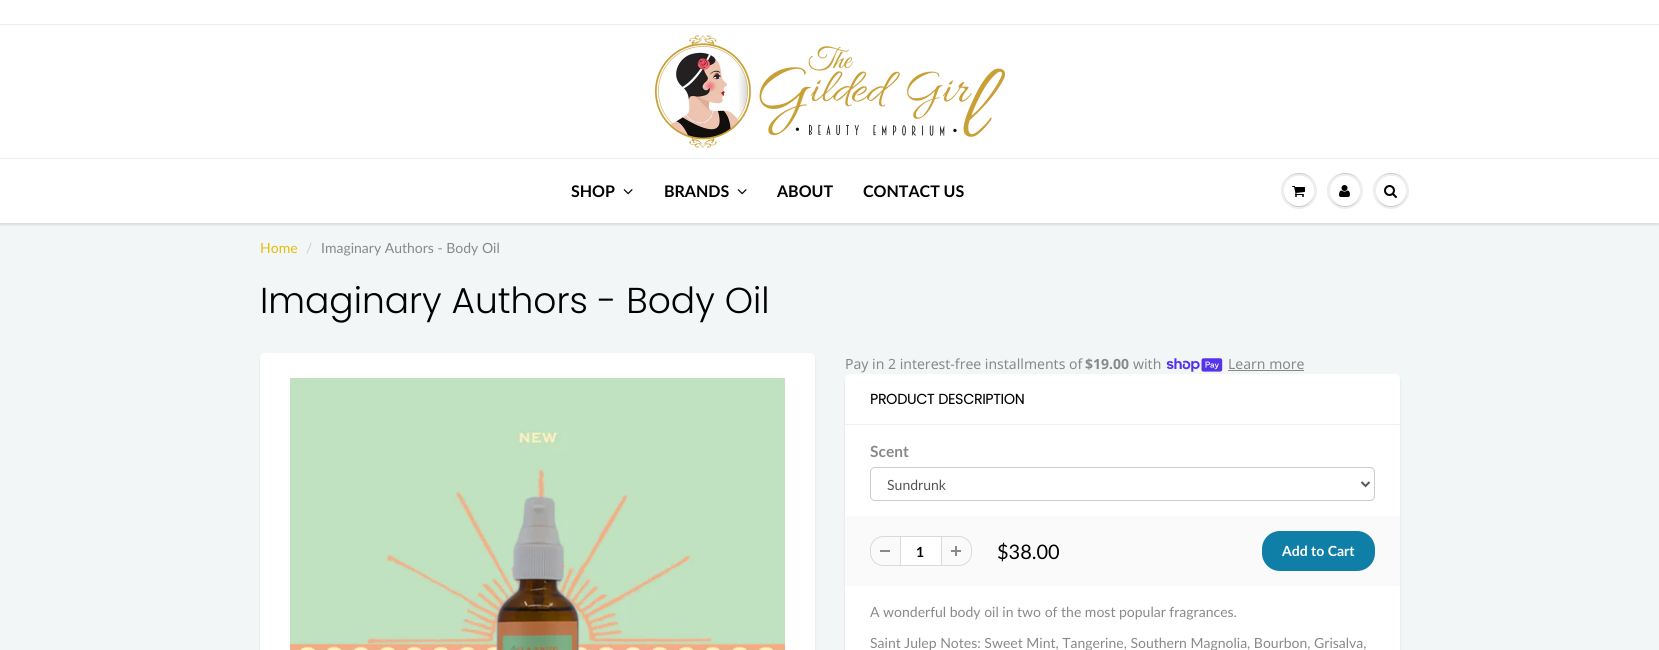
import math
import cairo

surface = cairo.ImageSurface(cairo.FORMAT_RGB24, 1659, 650)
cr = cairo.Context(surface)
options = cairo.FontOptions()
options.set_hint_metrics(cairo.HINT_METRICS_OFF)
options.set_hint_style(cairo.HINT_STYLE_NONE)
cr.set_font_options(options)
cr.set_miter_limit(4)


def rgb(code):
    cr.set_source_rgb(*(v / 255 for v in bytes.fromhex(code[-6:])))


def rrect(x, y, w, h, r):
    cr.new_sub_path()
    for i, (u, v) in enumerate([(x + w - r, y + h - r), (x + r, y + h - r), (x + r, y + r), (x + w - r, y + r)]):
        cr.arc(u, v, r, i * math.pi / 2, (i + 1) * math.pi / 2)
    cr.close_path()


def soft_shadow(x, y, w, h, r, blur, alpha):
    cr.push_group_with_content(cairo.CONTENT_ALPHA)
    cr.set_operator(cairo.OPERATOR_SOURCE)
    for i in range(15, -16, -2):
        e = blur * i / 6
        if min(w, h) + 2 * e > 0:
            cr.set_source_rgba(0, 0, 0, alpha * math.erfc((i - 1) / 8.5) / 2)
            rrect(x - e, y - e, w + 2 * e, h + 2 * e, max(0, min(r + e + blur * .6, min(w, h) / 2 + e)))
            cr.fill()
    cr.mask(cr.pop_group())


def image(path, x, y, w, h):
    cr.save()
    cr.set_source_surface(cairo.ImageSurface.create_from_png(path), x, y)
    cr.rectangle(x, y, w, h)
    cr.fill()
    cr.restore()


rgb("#ffffff")
cr.paint()
rgb("#ecefef")
cr.rectangle(0, 24, 1659, 1)
cr.fill()
image("img/1.png", 655, 35, 350, 113)
rgb("#f3f6f6")
cr.rectangle(0, 223, 1659, 427)
cr.fill()
cr.save()
cr.rectangle(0, 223, 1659, 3)
cr.clip()
rgb("#0b191c")
soft_shadow(0, 160, 1659, 65, 0, 1, 0.12)
cr.restore()
rgb("#ecefef")
cr.rectangle(0, 158, 1659, 1)
cr.fill()
image("img/2.png", 623, 189, 10, 6)
image("img/2.png", 737, 189, 10, 6)
rgb("#edefef")
cr.arc(1299, 191, 18, 0, 2 * math.pi)
cr.fill()
rgb("#c9cbcb")
cr.new_path()
cr.move_to(1299, 174)
cr.curve_to(1311, 174, 1317, 182.5, 1317, 191.5)
cr.curve_to(1317, 188, 1316, 184, 1314, 181)
cr.curve_to(1304, 166, 1280.5, 173.5, 1281, 191.5)
cr.curve_to(1281, 182.5, 1287, 174, 1299, 174)
cr.close_path()
cr.fill()
cr.new_path()
cr.move_to(1314, 191.5)
cr.curve_to(1313.5, 210.5, 1284.5, 210.5, 1284, 191.5)
cr.curve_to(1283.5, 206.5, 1303, 213, 1311.5, 200.5)
cr.curve_to(1313, 198, 1314, 194.5, 1314, 191.5)
cr.close_path()
cr.fill()
rgb("#ffffff")
cr.arc(1299, 191, 15, 0, 2 * math.pi)
cr.fill()
cr.new_path()
cr.move_to(1299, 177)
cr.curve_to(1309, 177, 1314, 184, 1314, 191.5)
cr.curve_to(1314, 188.5, 1313, 185, 1311.5, 182.5)
cr.curve_to(1303, 170, 1283.5, 176.5, 1284, 191.5)
cr.curve_to(1284, 184, 1289, 177, 1299, 177)
cr.close_path()
cr.fill()
image("img/3.png", 1292, 186, 13, 11)
rgb("#edefef")
cr.arc(1345, 191, 18, 0, 2 * math.pi)
cr.fill()
rgb("#c9cbcb")
cr.new_path()
cr.move_to(1345, 174)
cr.curve_to(1357, 174, 1363, 182.5, 1363, 191.5)
cr.curve_to(1363, 188, 1362, 184, 1360, 181)
cr.curve_to(1350, 166, 1326.5, 173.5, 1327, 191.5)
cr.curve_to(1327, 182.5, 1333, 174, 1345, 174)
cr.close_path()
cr.fill()
cr.new_path()
cr.move_to(1360, 191.5)
cr.curve_to(1359.5, 210.5, 1330.5, 210.5, 1330, 191.5)
cr.curve_to(1330, 194.5, 1331, 198, 1332.5, 200.5)
cr.curve_to(1341, 213, 1360.5, 206.5, 1360, 191.5)
cr.close_path()
cr.fill()
rgb("#ffffff")
cr.arc(1345, 191, 15, 0, 2 * math.pi)
cr.fill()
cr.new_path()
cr.move_to(1345, 177)
cr.curve_to(1355, 177, 1360, 184, 1360, 191.5)
cr.curve_to(1360, 188.5, 1359, 185, 1357.5, 182.5)
cr.curve_to(1349, 170, 1329.5, 176.5, 1330, 191.5)
cr.curve_to(1330, 184, 1335, 177, 1345, 177)
cr.close_path()
cr.fill()
image("img/4.png", 1339, 185, 11, 12)
rgb("#edefef")
cr.arc(1391, 191, 18, 0, 2 * math.pi)
cr.fill()
rgb("#c9cbcb")
cr.new_path()
cr.move_to(1391, 174)
cr.curve_to(1403, 174, 1409, 182.5, 1409, 191.5)
cr.curve_to(1409, 188, 1408, 184, 1406, 181)
cr.curve_to(1396, 166, 1372.5, 173.5, 1373, 191.5)
cr.curve_to(1373, 182.5, 1379, 174, 1391, 174)
cr.close_path()
cr.fill()
cr.new_path()
cr.move_to(1406, 191.5)
cr.curve_to(1405.5, 210.5, 1376.5, 210.5, 1376, 191.5)
cr.curve_to(1376, 194.5, 1377, 198, 1378.5, 200.5)
cr.curve_to(1387, 213, 1406.5, 206.5, 1406, 191.5)
cr.close_path()
cr.fill()
rgb("#ffffff")
cr.arc(1391, 191, 15, 0, 2 * math.pi)
cr.fill()
cr.new_path()
cr.move_to(1391, 177)
cr.curve_to(1401, 177, 1406, 184, 1406, 191.5)
cr.curve_to(1406, 188.5, 1405, 185, 1403.5, 182.5)
cr.curve_to(1395, 170, 1375.5, 176.5, 1376, 191.5)
cr.curve_to(1376, 184, 1381, 177, 1391, 177)
cr.close_path()
cr.fill()
image("img/5.png", 1384, 185, 13, 13)
rgb("#0b191c")
soft_shadow(260, 355, 555, 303, 5, 1, 0.1)
rgb("#ffffff")
rrect(260, 353, 555, 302, 5)
cr.fill()
image("img/6.png", 290, 378, 495, 272)
image("img/7.png", 1166, 358, 57, 14)
rgb("#898989")
cr.rectangle(1228, 370, 76, 1)
cr.fill()
rgb("#0b191c")
soft_shadow(845, 376, 555, 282, 5, 1, 0.1)
rgb("#ffffff")
rrect(845, 374, 555, 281, 5)
cr.fill()
rgb("#efefef")
cr.rectangle(845, 424, 555, 1)
cr.fill()
rrect(870.5, 467.5, 504, 33, 4.5)
rgb("#cccccc")
cr.set_line_width(1)
cr.stroke()
cr.new_path()
cr.move_to(1361.5, 482)
cr.line_to(1365.5, 486)
cr.line_to(1369.5, 482)
rgb("#555555")
cr.set_line_width(2)
cr.stroke()
rgb("#fafafa")
cr.rectangle(845, 516, 555, 70)
cr.fill()
rgb("#898989")
cr.rectangle(880, 550, 10, 2)
cr.fill()
rgb("#d7dbdb")
cr.set_fill_rule(cairo.FILL_RULE_EVEN_ODD)
cr.new_path()
cr.move_to(883, 536)
cr.line_to(900, 536)
cr.line_to(900, 566)
cr.line_to(883, 566)
cr.curve_to(876, 566, 870, 560, 870, 553)
cr.line_to(870, 549)
cr.curve_to(870, 542, 876, 536, 883, 536)
cr.close_path()
cr.move_to(883, 537)
cr.line_to(900, 537)
cr.line_to(900, 565)
cr.line_to(883, 565)
cr.curve_to(876.5, 565, 871, 559.5, 871, 553)
cr.line_to(871, 549)
cr.curve_to(871, 542.5, 876.5, 537, 883, 537)
cr.close_path()
cr.fill()
rgb("#ffffff")
cr.rectangle(900.5, 536.5, 41, 29)
cr.fill_preserve()
rgb("#d7dbdb")
cr.set_line_width(1)
cr.stroke()
image("img/8.png", 951, 546, 10, 10)
cr.new_path()
cr.move_to(942, 536)
cr.line_to(959, 536)
cr.curve_to(966, 536, 972, 542, 972, 549)
cr.line_to(972, 553)
cr.curve_to(972, 560, 966, 566, 959, 566)
cr.line_to(942, 566)
cr.close_path()
cr.move_to(942, 537)
cr.line_to(959, 537)
cr.curve_to(965.5, 537, 971, 542.5, 971, 549)
cr.line_to(971, 553)
cr.curve_to(971, 559.5, 965.5, 565, 959, 565)
cr.line_to(942, 565)
cr.close_path()
cr.fill()
rgb("#107fa8")
rrect(1262, 531, 113, 40, 18)
cr.fill()
cr.select_font_face("Lato", cairo.FONT_SLANT_NORMAL, cairo.FONT_WEIGHT_BOLD)
cr.set_font_size(16)
rgb("#000000")
for x, y, s in [
    (571, 197, "SHOP"),
    (664, 197, "BRANDS"),
    (777, 197, "ABOUT"),
    (863, 197, "CONTACT US"),
]:
    cr.move_to(x, y)
    cr.show_text(s)
cr.select_font_face("Lato")
cr.set_font_size(14)
rgb("#e3bd0e")
cr.move_to(260, 253)
cr.show_text("Home")
rgb("#cccccc")
cr.move_to(306, 253)
cr.show_text("/")
rgb("#898989")
cr.move_to(321, 253)
cr.show_text("Imaginary Authors - Body Oil")
cr.select_font_face("Poppins Light")
cr.set_font_size(36)
rgb("#000000")
cr.move_to(260, 313)
cr.show_text("Imaginary Authors - Body Oil")
cr.select_font_face("Noto Sans")
cr.set_font_size(14)
rgb("#898989")
cr.move_to(845, 369)
cr.show_text("Pay in 2 interest-free installments of")
cr.select_font_face("Noto Sans", cairo.FONT_SLANT_NORMAL, cairo.FONT_WEIGHT_BOLD)
cr.move_to(1085, 369)
cr.show_text("$19.00")
cr.select_font_face("Noto Sans")
cr.move_to(1133, 369)
cr.show_text("with")
cr.move_to(1228, 369)
cr.show_text("Learn more")
cr.select_font_face("Poppins", cairo.FONT_SLANT_NORMAL, cairo.FONT_WEIGHT_BOLD)
rgb("#000000")
cr.move_to(870, 404)
cr.show_text("PRODUCT DESCRIPTION")
cr.select_font_face("Lato", cairo.FONT_SLANT_NORMAL, cairo.FONT_WEIGHT_BOLD)
cr.set_font_size(15.5)
rgb("#898989")
cr.move_to(870, 457)
cr.show_text("Scent")
cr.select_font_face("Lato")
cr.set_font_size(14)
rgb("#555555")
cr.move_to(887, 490)
cr.show_text("Sundrunk")
cr.select_font_face("Lato", cairo.FONT_SLANT_NORMAL, cairo.FONT_WEIGHT_BOLD)
rgb("#000000")
cr.move_to(916, 557)
cr.show_text("1")
cr.select_font_face("Lato")
cr.set_font_size(20)
cr.move_to(997, 559)
cr.show_text("$38.00")
cr.select_font_face("Lato", cairo.FONT_SLANT_NORMAL, cairo.FONT_WEIGHT_BOLD)
cr.set_font_size(14)
rgb("#ffffff")
cr.move_to(1282, 556)
cr.show_text("Add to Cart")
cr.select_font_face("Lato")
rgb("#898989")
cr.move_to(870, 617)
cr.show_text("A wonderful body oil in two of the most popular fragrances.")
cr.move_to(870, 648)
cr.show_text("Saint Julep Notes: Sweet Mint, Tangerine, Southern Magnolia, Bourbon, Grisalva,")
surface.write_to_png("page.png")
